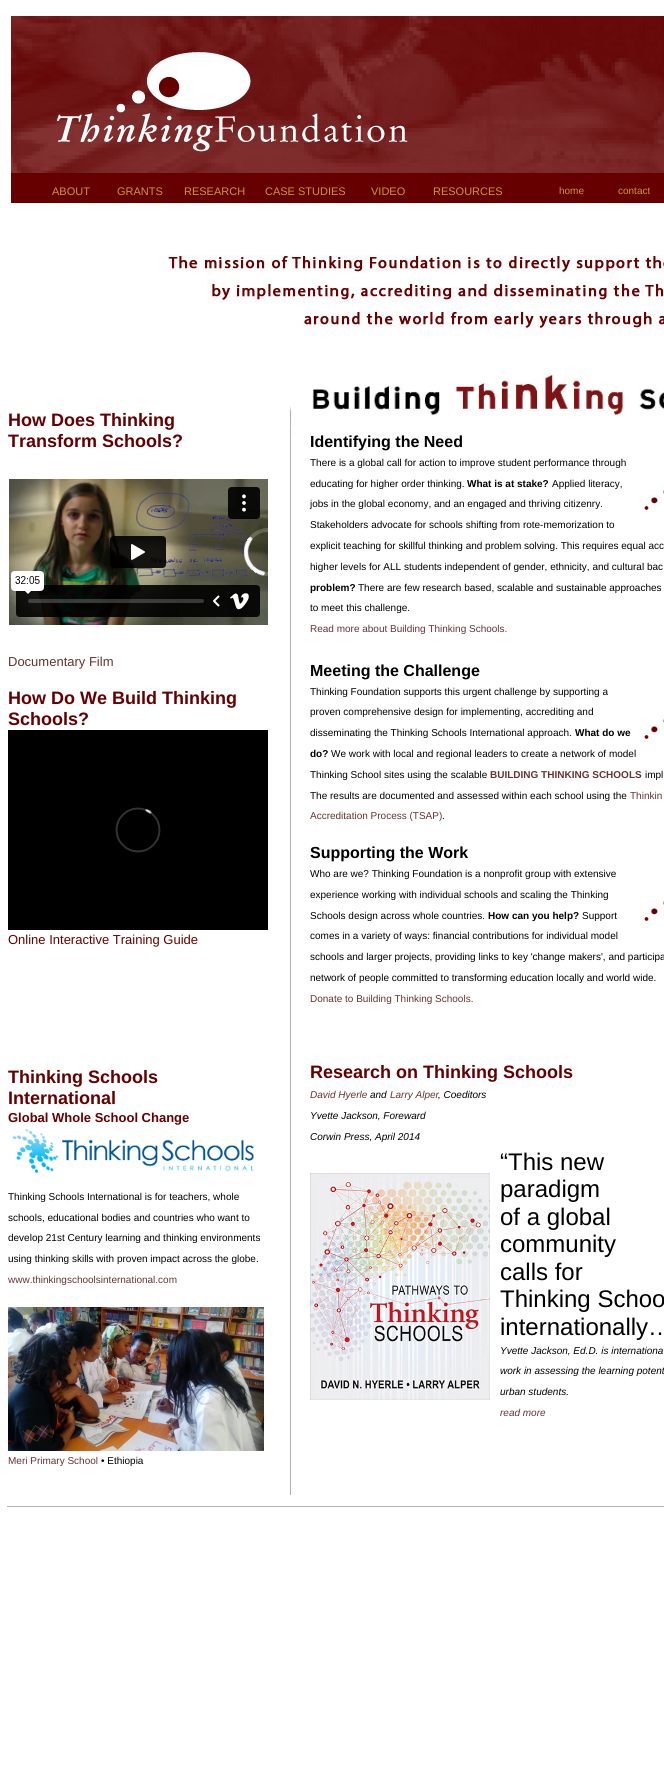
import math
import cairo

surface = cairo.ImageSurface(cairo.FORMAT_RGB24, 664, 1792)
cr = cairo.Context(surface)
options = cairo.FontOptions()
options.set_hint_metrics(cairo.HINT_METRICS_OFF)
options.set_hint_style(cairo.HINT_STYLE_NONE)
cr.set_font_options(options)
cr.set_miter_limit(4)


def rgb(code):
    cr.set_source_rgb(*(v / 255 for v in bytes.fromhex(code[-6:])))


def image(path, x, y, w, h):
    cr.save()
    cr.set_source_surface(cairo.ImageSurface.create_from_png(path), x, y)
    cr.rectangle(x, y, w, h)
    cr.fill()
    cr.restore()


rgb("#ffffff")
cr.paint()
image("img/1.png", 8, 16, 656, 157)
rgb("#660000")
cr.rectangle(11, 173, 653, 30)
cr.fill()
image("img/2.png", 9, 479, 259, 146)
image("img/3.png", 8, 730, 260, 200)
image("img/4.png", 12, 1129, 242, 44)
image("img/5.png", 8, 1307, 256, 144)
image("img/6.png", 289, 406, 6, 1089)
image("img/7.png", 312, 374, 352, 42)
image("img/8.png", 642, 484, 22, 29)
image("img/8.png", 642, 713, 22, 29)
image("img/8.png", 642, 895, 22, 29)
image("img/9.png", 310, 1173, 180, 227)
rgb("#b1b1b1")
cr.rectangle(7, 1506, 657, 1)
cr.fill()
image("img/10.png", 167, 255, 497, 80)
cr.select_font_face("Liberation Sans")
cr.set_font_size(11)
rgb("#ca992c")
for x, y, s in [
    (52, 195, "ABOUT"),
    (117, 195, "GRANTS"),
    (184, 195, "RESEARCH"),
    (265, 195, "CASE STUDIES"),
    (371, 195, "VIDEO"),
    (433, 195, "RESOURCES"),
]:
    cr.move_to(x, y)
    cr.show_text(s)
cr.set_font_size(10)
cr.move_to(559, 194)
cr.show_text("home")
cr.move_to(618, 194)
cr.show_text("contact")
cr.select_font_face("Liberation Sans", cairo.FONT_SLANT_NORMAL, cairo.FONT_WEIGHT_BOLD)
cr.set_font_size(18)
rgb("#660000")
cr.move_to(8, 426)
cr.show_text("How Does Thinking")
cr.move_to(8, 447)
cr.show_text("Transform Schools?")
cr.select_font_face("Liberation Sans")
cr.set_font_size(13)
rgb("#663333")
cr.move_to(8, 666)
cr.show_text("Documentary Film")
cr.select_font_face("Liberation Sans", cairo.FONT_SLANT_NORMAL, cairo.FONT_WEIGHT_BOLD)
cr.set_font_size(18)
rgb("#660000")
cr.move_to(8, 704)
cr.show_text("How Do We Build Thinking")
cr.move_to(8, 725)
cr.show_text("Schools?")
cr.select_font_face("Liberation Sans")
cr.set_font_size(13)
cr.move_to(8, 944)
cr.show_text("Online Interactive Training Guide")
cr.select_font_face("Liberation Sans", cairo.FONT_SLANT_NORMAL, cairo.FONT_WEIGHT_BOLD)
cr.set_font_size(18)
cr.move_to(8, 1083)
cr.show_text("Thinking Schools")
cr.move_to(8, 1104)
cr.show_text("International")
cr.set_font_size(13)
cr.move_to(8, 1122)
cr.show_text("Global Whole School Change")
cr.select_font_face("Liberation Sans")
cr.set_font_size(10)
rgb("#000000")
for x, y, s in [
    (8, 1200, "Thinking Schools International is for teachers, whole"),
    (8, 1221, "schools, educational bodies and countries who want to"),
    (8, 1241, "develop 21st Century learning and thinking environments"),
    (8, 1262, "using thinking skills with proven impact across the globe."),
]:
    cr.move_to(x, y)
    cr.show_text(s)
rgb("#663333")
cr.move_to(8, 1283)
cr.show_text("www.thinkingschoolsinternational.com")
cr.move_to(8, 1464)
cr.show_text("Meri Primary School")
rgb("#000000")
cr.move_to(101, 1464)
cr.show_text("• Ethiopia")
cr.select_font_face("Liberation Sans", cairo.FONT_SLANT_NORMAL, cairo.FONT_WEIGHT_BOLD)
cr.set_font_size(16)
cr.move_to(310, 447)
cr.show_text("Identifying the Need")
cr.select_font_face("Liberation Sans")
cr.set_font_size(10)
cr.move_to(310, 466)
cr.show_text("There is a global call for action to improve student performance through")
cr.move_to(310, 487)
cr.show_text("educating for higher order thinking.")
cr.select_font_face("Liberation Sans", cairo.FONT_SLANT_NORMAL, cairo.FONT_WEIGHT_BOLD)
cr.move_to(467, 487)
cr.show_text("What is at stake?")
cr.select_font_face("Liberation Sans")
for x, y, s in [
    (552, 487, "Applied literacy,"),
    (310, 507, "jobs in the global economy, and an engaged and thriving citizenry."),
    (310, 528, "Stakeholders advocate for schools shifting from rote-memorization to"),
    (310, 549, "explicit teaching for skillful thinking and problem solving. This requires equal acc"),
    (310, 570, "higher levels for ALL students independent of gender, ethnicity, and cultural bac"),
]:
    cr.move_to(x, y)
    cr.show_text(s)
cr.select_font_face("Liberation Sans", cairo.FONT_SLANT_NORMAL, cairo.FONT_WEIGHT_BOLD)
cr.move_to(310, 591)
cr.show_text("problem?")
cr.select_font_face("Liberation Sans")
cr.move_to(358, 591)
cr.show_text("There are few research based, scalable and sustainable approaches")
cr.move_to(310, 611)
cr.show_text("to meet this challenge.")
rgb("#663333")
cr.move_to(310, 632)
cr.show_text("Read more about Building Thinking Schools.")
cr.select_font_face("Liberation Sans", cairo.FONT_SLANT_NORMAL, cairo.FONT_WEIGHT_BOLD)
cr.set_font_size(16)
rgb("#000000")
cr.move_to(310, 676)
cr.show_text("Meeting the Challenge")
cr.select_font_face("Liberation Sans")
cr.set_font_size(10)
for x, y, s in [
    (310, 695, "Thinking Foundation supports this urgent challenge by supporting a"),
    (310, 715, "proven comprehensive design for implementing, accrediting and"),
    (310, 736, "disseminating the Thinking Schools International approach."),
]:
    cr.move_to(x, y)
    cr.show_text(s)
cr.select_font_face("Liberation Sans", cairo.FONT_SLANT_NORMAL, cairo.FONT_WEIGHT_BOLD)
cr.move_to(575, 736)
cr.show_text("What do we")
cr.move_to(310, 757)
cr.show_text("do?")
cr.select_font_face("Liberation Sans")
cr.move_to(331, 757)
cr.show_text("We work with local and regional leaders to create a network of model")
cr.move_to(310, 778)
cr.show_text("Thinking School sites using the scalable")
cr.select_font_face("Liberation Sans", cairo.FONT_SLANT_NORMAL, cairo.FONT_WEIGHT_BOLD)
rgb("#663333")
cr.move_to(490, 778)
cr.show_text("BUILDING THINKING SCHOOLS")
cr.select_font_face("Liberation Sans")
rgb("#000000")
cr.move_to(645, 778)
cr.show_text("impl")
cr.move_to(310, 799)
cr.show_text("The results are documented and assessed within each school using the")
rgb("#663333")
cr.move_to(630, 799)
cr.show_text("Thinkin")
cr.move_to(310, 819)
cr.show_text("Accreditation Process (TSAP)")
rgb("#000000")
cr.move_to(442, 819)
cr.show_text(".")
cr.select_font_face("Liberation Sans", cairo.FONT_SLANT_NORMAL, cairo.FONT_WEIGHT_BOLD)
cr.set_font_size(16)
cr.move_to(310, 858)
cr.show_text("Supporting the Work")
cr.select_font_face("Liberation Sans")
cr.set_font_size(10)
for x, y, s in [
    (310, 877, "Who are we? Thinking Foundation is a nonprofit group with extensive"),
    (310, 898, "experience working with individual schools and scaling the Thinking"),
    (310, 919, "Schools design across whole countries."),
]:
    cr.move_to(x, y)
    cr.show_text(s)
cr.select_font_face("Liberation Sans", cairo.FONT_SLANT_NORMAL, cairo.FONT_WEIGHT_BOLD)
cr.move_to(488, 919)
cr.show_text("How can you help?")
cr.select_font_face("Liberation Sans")
for x, y, s in [
    (582, 919, "Support"),
    (310, 939, "comes in a variety of ways: financial contributions for individual model"),
    (310, 960, "schools and larger projects, providing links to key 'change makers', and participa"),
    (310, 981, "network of people committed to transforming education locally and world wide."),
]:
    cr.move_to(x, y)
    cr.show_text(s)
rgb("#663333")
cr.move_to(310, 1002)
cr.show_text("Donate to Building Thinking Schools.")
cr.select_font_face("Liberation Sans", cairo.FONT_SLANT_NORMAL, cairo.FONT_WEIGHT_BOLD)
cr.set_font_size(18)
rgb("#660000")
cr.move_to(310, 1078)
cr.show_text("Research on Thinking Schools")
cr.select_font_face("Liberation Sans", cairo.FONT_SLANT_ITALIC)
cr.set_font_size(10)
rgb("#663333")
cr.move_to(310, 1098)
cr.show_text("David Hyerle")
rgb("#000000")
cr.move_to(370, 1098)
cr.show_text("and")
rgb("#663333")
cr.move_to(390, 1098)
cr.show_text("Larry Alper")
rgb("#000000")
for x, y, s in [
    (438, 1098, ", Coeditors"),
    (310, 1119, "Yvette Jackson, Foreward"),
    (310, 1140, "Corwin Press, April 2014"),
]:
    cr.move_to(x, y)
    cr.show_text(s)
cr.select_font_face("Liberation Sans")
cr.set_font_size(24)
for x, y, s in [
    (500, 1170, "“This new"),
    (500, 1197, "paradigm"),
    (500, 1225, "of a global"),
    (500, 1252, "community"),
    (500, 1280, "calls for"),
    (500, 1307, "Thinking Schoo"),
    (500, 1335, "internationally…"),
]:
    cr.move_to(x, y)
    cr.show_text(s)
cr.select_font_face("Liberation Sans", cairo.FONT_SLANT_ITALIC)
cr.set_font_size(10)
for x, y, s in [
    (500, 1354, "Yvette Jackson, Ed.D. is internationa"),
    (500, 1374, "work in assessing the learning potent"),
    (500, 1395, "urban students."),
]:
    cr.move_to(x, y)
    cr.show_text(s)
rgb("#663333")
cr.move_to(500, 1416)
cr.show_text("read more")
surface.write_to_png("page.png")
